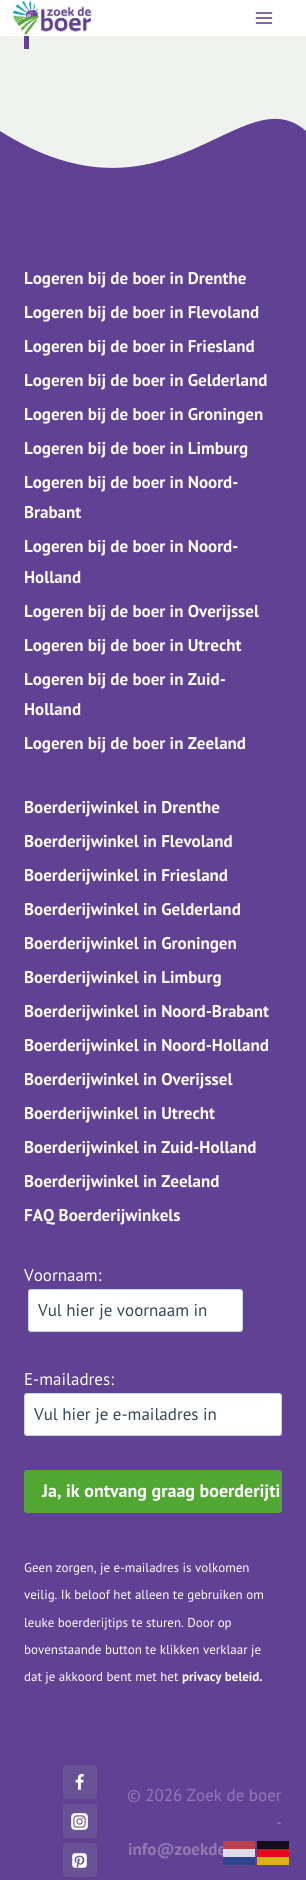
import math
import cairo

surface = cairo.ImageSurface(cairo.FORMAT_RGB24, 306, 1880)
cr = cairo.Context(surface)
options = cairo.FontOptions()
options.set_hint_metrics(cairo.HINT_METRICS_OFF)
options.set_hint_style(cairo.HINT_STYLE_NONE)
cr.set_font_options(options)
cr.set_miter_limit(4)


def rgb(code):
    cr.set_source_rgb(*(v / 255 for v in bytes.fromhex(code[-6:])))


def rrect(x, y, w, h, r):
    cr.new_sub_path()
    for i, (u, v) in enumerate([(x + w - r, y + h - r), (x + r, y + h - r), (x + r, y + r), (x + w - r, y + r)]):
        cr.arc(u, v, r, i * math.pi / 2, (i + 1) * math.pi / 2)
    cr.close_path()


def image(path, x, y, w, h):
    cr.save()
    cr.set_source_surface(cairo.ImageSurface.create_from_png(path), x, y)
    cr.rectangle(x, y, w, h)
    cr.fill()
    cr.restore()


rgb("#eff2ed")
cr.paint()
rgb("#ffffff")
cr.rectangle(0, 0, 306, 36)
cr.fill()
image("img/1.png", 12, 1, 80, 34)
image("img/2.png", 255, 12, 18, 12)
rgb("#614194")
cr.rectangle(24, 36, 5, 13)
cr.fill()
cr.save()
cr.rectangle(0, 81, 306, 150)
cr.clip()
cr.new_path()
cr.move_to(0, 131)
cr.curve_to(167, 237, 242, 75, 306, 131)
cr.line_to(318, 250)
cr.line_to(-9, 243)
cr.close_path()
cr.fill()
cr.restore()
cr.rectangle(0, 231, 306, 1649)
cr.fill()
rgb("#ffffff")
rrect(28.5, 1289.5, 214, 42, 2.5)
cr.fill_preserve()
rgb("#cbd5e0")
cr.set_line_width(1)
cr.stroke()
rgb("#ffffff")
rrect(24.5, 1393.5, 257, 42, 2.5)
cr.fill_preserve()
rgb("#cbd5e0")
cr.stroke()
rgb("#52a733")
rrect(24, 1470, 258, 43, 3)
cr.fill()
rgb("#685295")
rrect(63, 1765, 34, 34, 3)
cr.fill()
image("img/3.png", 75, 1774, 9, 16)
rrect(63, 1804, 34, 34, 3)
cr.fill()
image("img/4.png", 71, 1813, 17, 17)
rrect(63, 1843, 34, 34, 3)
cr.fill()
image("img/5.png", 72, 1853, 15, 15)
cr.set_source_rgba(0, 0, 0, 0.8)
cr.rectangle(257, 1841, 32, 8)
cr.fill()
cr.set_source_rgba(1, 0, 0, 0.8)
cr.rectangle(257, 1849, 32, 8)
cr.fill()
rgb("#dfb01e")
cr.rectangle(257, 1857, 32, 8)
cr.fill()
cr.select_font_face("PT Sans", cairo.FONT_SLANT_NORMAL, cairo.FONT_WEIGHT_BOLD)
cr.set_font_size(17)
rgb("#ffffff")
for x, y, s in [
    (24, 284, "Logeren bij de boer in Drenthe"),
    (24, 318, "Logeren bij de boer in Flevoland"),
    (24, 352, "Logeren bij de boer in Friesland"),
    (24, 386, "Logeren bij de boer in Gelderland"),
    (24, 420, "Logeren bij de boer in Groningen"),
    (24, 454, "Logeren bij de boer in Limburg"),
    (24, 488, "Logeren bij de boer in Noord-"),
    (24, 518, "Brabant"),
    (24, 552, "Logeren bij de boer in Noord-"),
    (24, 583, "Holland"),
    (24, 617, "Logeren bij de boer in Overijssel"),
    (24, 651, "Logeren bij de boer in Utrecht"),
    (24, 685, "Logeren bij de boer in Zuid-"),
    (24, 715, "Holland"),
    (24, 749, "Logeren bij de boer in Zeeland"),
    (24, 813, "Boerderijwinkel in Drenthe"),
    (24, 847, "Boerderijwinkel in Flevoland"),
    (24, 881, "Boerderijwinkel in Friesland"),
    (24, 915, "Boerderijwinkel in Gelderland"),
    (24, 949, "Boerderijwinkel in Groningen"),
    (24, 983, "Boerderijwinkel in Limburg"),
    (24, 1017, "Boerderijwinkel in Noord-Brabant"),
    (24, 1051, "Boerderijwinkel in Noord-Holland"),
    (24, 1085, "Boerderijwinkel in Overijssel"),
    (24, 1119, "Boerderijwinkel in Utrecht"),
    (24, 1153, "Boerderijwinkel in Zuid-Holland"),
    (24, 1187, "Boerderijwinkel in Zeeland"),
    (24, 1221, "FAQ Boerderijwinkels"),
]:
    cr.move_to(x, y)
    cr.show_text(s)
cr.select_font_face("PT Sans")
cr.move_to(24, 1281)
cr.show_text("Voornaam:")
rgb("#334755")
cr.move_to(38, 1316)
cr.show_text("Vul hier je voornaam in")
rgb("#ffffff")
cr.move_to(24, 1385)
cr.show_text("E-mailadres:")
rgb("#334755")
cr.move_to(34, 1420)
cr.show_text("Vul hier je e-mailadres in")
cr.select_font_face("PT Sans", cairo.FONT_SLANT_NORMAL, cairo.FONT_WEIGHT_BOLD)
cr.set_font_size(18)
rgb("#ffffff")
cr.move_to(42, 1497)
cr.show_text("Ja, ik ontvang graag boerderijti")
cr.select_font_face("PT Sans")
cr.set_font_size(13)
for x, y, s in [
    (24, 1572, "Geen zorgen, je e-mailadres is volkomen"),
    (24, 1599, "veilig. Ik beloof het alleen te gebruiken om"),
    (24, 1627, "leuke boerderijtips te sturen. Door op"),
    (24, 1654, "bovenstaande button te klikken verklaar je"),
    (24, 1681, "dat je akkoord bent met het"),
]:
    cr.move_to(x, y)
    cr.show_text(s)
cr.select_font_face("PT Sans", cairo.FONT_SLANT_NORMAL, cairo.FONT_WEIGHT_BOLD)
cr.move_to(182, 1681)
cr.show_text("privacy beleid.")
cr.select_font_face("PT Sans")
cr.set_font_size(17)
rgb("#907ab4")
cr.move_to(127, 1801)
cr.show_text("© 2026 Zoek de boer")
cr.move_to(276, 1828)
cr.show_text("-")
cr.select_font_face("PT Sans", cairo.FONT_SLANT_NORMAL, cairo.FONT_WEIGHT_BOLD)
cr.move_to(128, 1855)
cr.show_text("info@zoekde")
cr.set_source_rgba(1, 1, 1, 0.8)
cr.rectangle(223, 1841, 32, 16)
cr.fill()
cr.set_source_rgba(0.682, 0.11, 0.157, 0.8)
cr.rectangle(223, 1841, 32, 8)
cr.fill()
rgb("#2e458d")
cr.rectangle(223, 1857, 32, 8)
cr.fill()
surface.write_to_png("page.png")
